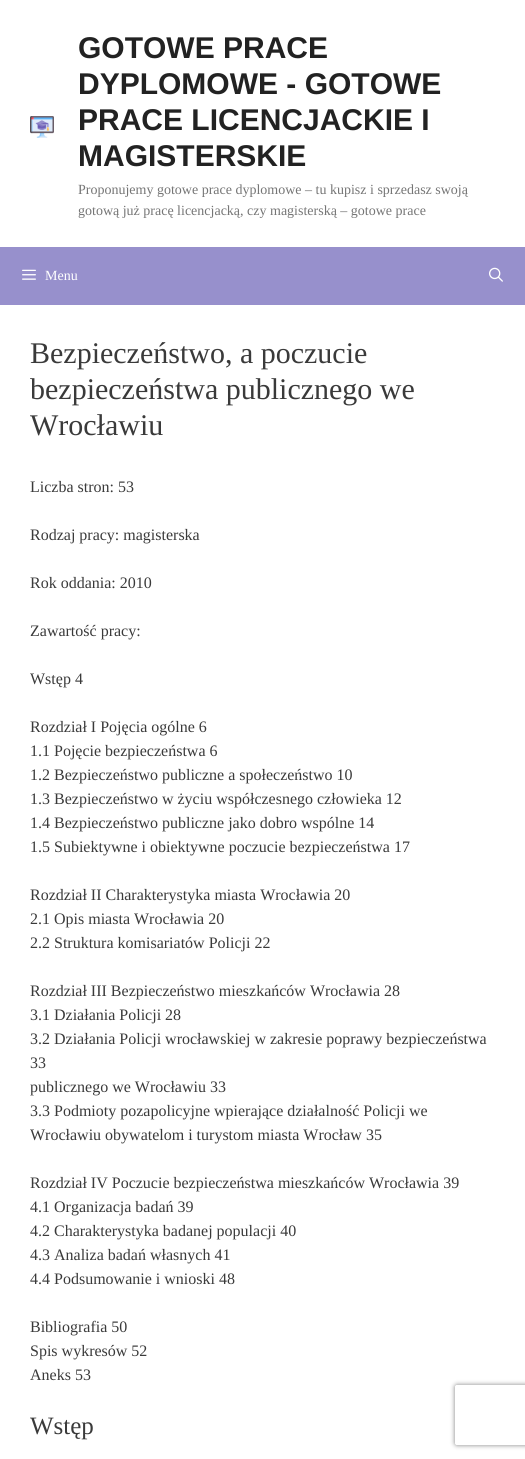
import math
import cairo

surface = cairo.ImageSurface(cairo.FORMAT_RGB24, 525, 1459)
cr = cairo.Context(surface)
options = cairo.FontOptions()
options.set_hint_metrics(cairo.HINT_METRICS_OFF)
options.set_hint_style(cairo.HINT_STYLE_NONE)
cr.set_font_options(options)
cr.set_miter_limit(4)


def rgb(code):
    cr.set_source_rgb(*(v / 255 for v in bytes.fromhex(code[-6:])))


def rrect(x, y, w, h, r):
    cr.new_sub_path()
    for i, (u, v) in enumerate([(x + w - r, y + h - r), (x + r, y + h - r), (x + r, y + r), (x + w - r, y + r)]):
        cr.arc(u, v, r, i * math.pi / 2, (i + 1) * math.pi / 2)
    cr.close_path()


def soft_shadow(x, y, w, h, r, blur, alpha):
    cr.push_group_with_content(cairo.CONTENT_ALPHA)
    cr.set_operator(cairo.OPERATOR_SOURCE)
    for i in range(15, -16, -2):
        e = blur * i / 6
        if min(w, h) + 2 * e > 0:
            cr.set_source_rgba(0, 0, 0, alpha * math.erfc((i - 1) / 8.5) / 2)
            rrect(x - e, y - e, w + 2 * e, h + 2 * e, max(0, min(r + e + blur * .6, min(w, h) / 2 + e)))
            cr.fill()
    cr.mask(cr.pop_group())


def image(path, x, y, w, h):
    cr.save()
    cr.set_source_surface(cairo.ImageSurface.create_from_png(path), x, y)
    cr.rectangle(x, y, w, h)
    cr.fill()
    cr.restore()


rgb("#9790cc")
cr.paint()
rgb("#ffffff")
cr.rectangle(0, 0, 525, 247)
cr.fill()
image("img/1.png", 30, 116, 24, 22)
image("img/2.png", 22, 269, 14, 11)
image("img/3.png", 489, 267, 14, 15)
cr.rectangle(0, 305, 525, 1154)
cr.fill()
cr.save()
cr.set_fill_rule(cairo.FILL_RULE_EVEN_ODD)
cr.new_path()
cr.move_to(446, 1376)
cr.line_to(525, 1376)
cr.line_to(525, 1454)
cr.line_to(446, 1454)
cr.close_path()
cr.move_to(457, 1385)
cr.line_to(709, 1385)
cr.curve_to(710, 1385, 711, 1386, 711, 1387)
cr.line_to(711, 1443)
cr.curve_to(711, 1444, 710, 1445, 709, 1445)
cr.line_to(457, 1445)
cr.curve_to(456, 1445, 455, 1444, 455, 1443)
cr.line_to(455, 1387)
cr.curve_to(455, 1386, 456, 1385, 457, 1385)
cr.close_path()
cr.clip()
rgb("#808080")
soft_shadow(455, 1385, 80, 60, 2, 2.5, 1)
cr.restore()
cr.select_font_face("Liberation Sans", cairo.FONT_SLANT_NORMAL, cairo.FONT_WEIGHT_BOLD)
cr.set_font_size(30)
rgb("#222222")
for x, y, s in [
    (78, 58, "GOTOWE PRACE"),
    (78, 94, "DYPLOMOWE - GOTOWE"),
    (78, 130, "PRACE LICENCJACKIE I"),
    (78, 166, "MAGISTERSKIE"),
]:
    cr.move_to(x, y)
    cr.show_text(s)
cr.select_font_face("Liberation Serif")
cr.set_font_size(14)
rgb("#757575")
cr.move_to(78, 194)
cr.show_text("Proponujemy gotowe prace dyplomowe – tu kupisz i sprzedasz swoją")
cr.move_to(78, 215)
cr.show_text("gotową już pracę licencjacką, czy magisterską – gotowe prace")
rgb("#ffffff")
cr.move_to(45, 280)
cr.show_text("Menu")
cr.set_font_size(30)
rgb("#3a3a3a")
for x, y, s in [
    (30, 363, "Bezpieczeństwo, a poczucie"),
    (30, 399, "bezpieczeństwa publicznego we"),
    (30, 435, "Wrocławiu"),
]:
    cr.move_to(x, y)
    cr.show_text(s)
cr.set_font_size(16)
for x, y, s in [
    (30, 492, "Liczba stron: 53"),
    (30, 540, "Rodzaj pracy: magisterska"),
    (30, 588, "Rok oddania: 2010"),
    (30, 636, "Zawartość pracy:"),
    (30, 684, "Wstęp 4"),
    (30, 732, "Rozdział I Pojęcia ogólne 6"),
    (30, 756, "1.1 Pojęcie bezpieczeństwa 6"),
    (30, 780, "1.2 Bezpieczeństwo publiczne a społeczeństwo 10"),
    (30, 804, "1.3 Bezpieczeństwo w życiu współczesnego człowieka 12"),
    (30, 828, "1.4 Bezpieczeństwo publiczne jako dobro wspólne 14"),
    (30, 852, "1.5 Subiektywne i obiektywne poczucie bezpieczeństwa 17"),
    (30, 900, "Rozdział II Charakterystyka miasta Wrocławia 20"),
    (30, 924, "2.1 Opis miasta Wrocławia 20"),
    (30, 948, "2.2 Struktura komisariatów Policji 22"),
    (30, 996, "Rozdział III Bezpieczeństwo mieszkańców Wrocławia 28"),
    (30, 1020, "3.1 Działania Policji 28"),
    (30, 1044, "3.2 Działania Policji wrocławskiej w zakresie poprawy bezpieczeństwa"),
    (30, 1068, "33"),
    (30, 1092, "publicznego we Wrocławiu 33"),
    (30, 1116, "3.3 Podmioty pozapolicyjne wpierające działalność Policji we"),
    (30, 1140, "Wrocławiu obywatelom i turystom miasta Wrocław 35"),
    (30, 1188, "Rozdział IV Poczucie bezpieczeństwa mieszkańców Wrocławia 39"),
    (30, 1212, "4.1 Organizacja badań 39"),
    (30, 1236, "4.2 Charakterystyka badanej populacji 40"),
    (30, 1260, "4.3 Analiza badań własnych 41"),
    (30, 1284, "4.4 Podsumowanie i wnioski 48"),
    (30, 1332, "Bibliografia 50"),
    (30, 1356, "Spis wykresów 52"),
    (30, 1380, "Aneks 53"),
]:
    cr.move_to(x, y)
    cr.show_text(s)
cr.set_font_size(25)
cr.move_to(30, 1434)
cr.show_text("Wstęp")
surface.write_to_png("page.png")
